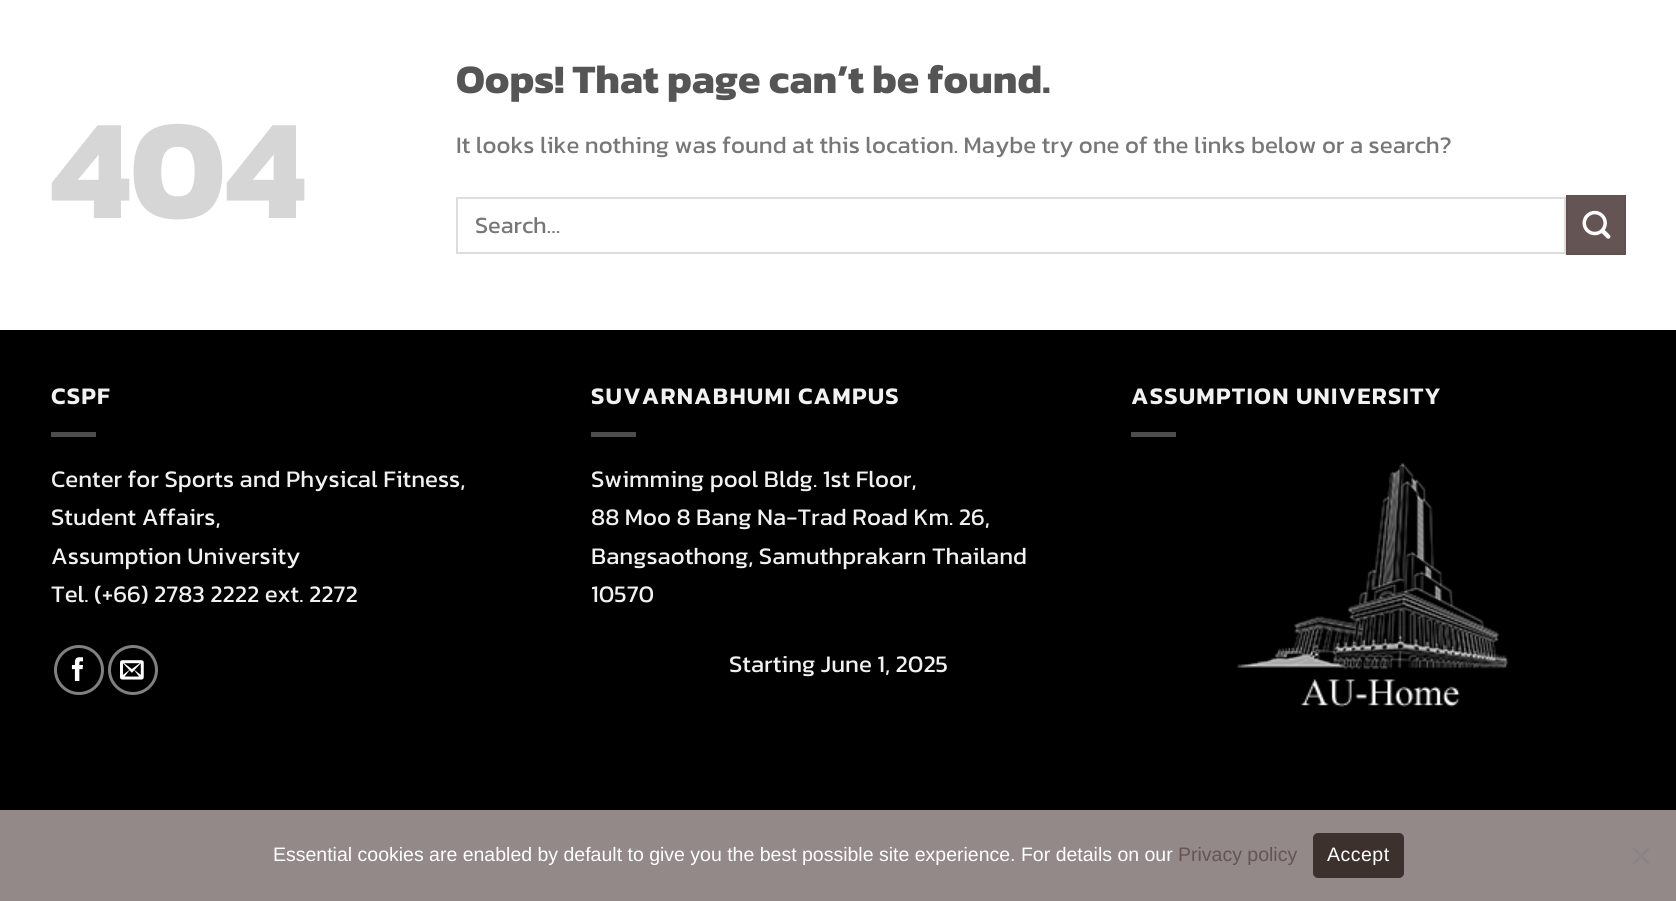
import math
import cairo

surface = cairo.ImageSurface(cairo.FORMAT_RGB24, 1676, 901)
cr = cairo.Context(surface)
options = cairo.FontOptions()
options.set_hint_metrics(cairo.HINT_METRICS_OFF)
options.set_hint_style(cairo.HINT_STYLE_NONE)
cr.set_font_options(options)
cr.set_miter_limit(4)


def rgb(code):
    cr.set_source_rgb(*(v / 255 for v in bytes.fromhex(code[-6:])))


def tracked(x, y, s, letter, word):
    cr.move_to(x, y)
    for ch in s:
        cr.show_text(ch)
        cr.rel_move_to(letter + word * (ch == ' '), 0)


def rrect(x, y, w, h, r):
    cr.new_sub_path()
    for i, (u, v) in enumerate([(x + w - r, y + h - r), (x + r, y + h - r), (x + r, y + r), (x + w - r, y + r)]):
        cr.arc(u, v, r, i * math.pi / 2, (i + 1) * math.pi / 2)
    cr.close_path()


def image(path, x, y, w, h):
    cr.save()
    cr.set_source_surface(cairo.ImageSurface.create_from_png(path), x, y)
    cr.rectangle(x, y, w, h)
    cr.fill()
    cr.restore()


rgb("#ffffff")
cr.paint()
cr.rectangle(457, 198, 1108, 55)
rgb("#dddddd")
cr.stroke()
rgb("#655454")
cr.rectangle(1567, 196, 58, 58)
cr.fill_preserve()
rgb("#605050")
cr.stroke()
image("img/1.png", 1582, 210, 29, 29)
rgb("#000000")
cr.rectangle(0, 330, 1676, 480)
cr.fill()
rgb("#4d4d4d")
cr.rectangle(51, 432, 45, 5)
cr.fill()
cr.arc(79, 670, 23.5, 0, 2 * math.pi)
rgb("#808080")
cr.set_line_width(3)
cr.stroke()
image("img/2.png", 71, 657, 12, 24)
cr.arc(133, 670, 23.5, 0, 2 * math.pi)
cr.stroke()
image("img/3.png", 120, 660, 24, 20)
rgb("#4d4d4d")
cr.rectangle(591, 432, 45, 5)
cr.fill()
cr.rectangle(1131, 432, 45, 5)
cr.fill()
image("img/4.png", 1237, 463, 271, 244)
rgb("#928988")
cr.rectangle(0, 810, 1676, 91)
cr.fill()
rgb("#3d312e")
rrect(1313, 833, 91, 45, 5)
cr.fill()
rgb("#898584")
cr.new_path()
cr.move_to(1648, 847)
cr.line_to(1650, 849)
cr.line_to(1634, 865)
cr.line_to(1632, 863)
cr.close_path()
cr.fill()
cr.new_path()
cr.move_to(1632, 849)
cr.line_to(1634, 847)
cr.line_to(1650, 863)
cr.line_to(1648, 865)
cr.close_path()
cr.fill()
cr.select_font_face("Kanit", cairo.FONT_SLANT_NORMAL, cairo.FONT_WEIGHT_BOLD)
cr.set_font_size(144)
rgb("#d6d6d6")
cr.move_to(51, 218)
cr.show_text("404")
cr.set_font_size(40.75)
rgb("#555555")
cr.move_to(456, 93)
cr.show_text("Oops! That page can’t be found.")
cr.select_font_face("Kanit")
cr.set_font_size(24)
rgb("#777777")
cr.move_to(456, 153)
cr.show_text("It looks like nothing was found at this location. Maybe try one of the links below or a search?")
cr.set_font_size(23.5)
cr.move_to(475, 233)
cr.show_text("Search…")
cr.select_font_face("Kanit SemiBold")
cr.set_font_size(24)
rgb("#f1f1f1")
tracked(51, 404, "CSPF", 1.2, 0)
cr.select_font_face("Kanit")
for x, y, s in [
    (51, 487, "Center for Sports and Physical Fitness,"),
    (51, 525, "Student Affairs,"),
    (51, 564, "Assumption University"),
    (51, 602, "Tel. (+66) 2783 2222 ext. 2272"),
]:
    cr.move_to(x, y)
    cr.show_text(s)
cr.select_font_face("Kanit SemiBold")
tracked(591, 404, "SUVARNABHUMI CAMPUS", 1.2, 0)
cr.select_font_face("Kanit")
for x, y, s in [
    (591, 487, "Swimming pool Bldg. 1st Floor,"),
    (591, 525, "88 Moo 8 Bang Na-Trad Road Km. 26,"),
    (591, 564, "Bangsaothong, Samuthprakarn Thailand"),
    (591, 602, "10570"),
    (729, 672, "Starting June 1, 2025"),
]:
    cr.move_to(x, y)
    cr.show_text(s)
cr.select_font_face("Kanit SemiBold")
tracked(1131, 404, "ASSUMPTION UNIVERSITY", 1.2, 0)
cr.select_font_face("Liberation Sans")
cr.set_font_size(19.5)
rgb("#ffffff")
cr.move_to(273, 861)
cr.show_text("Essential cookies are enabled by default to give you the best possible site experience. For details on our")
rgb("#655454")
cr.move_to(1178, 861)
cr.show_text("Privacy policy")
rgb("#ffffff")
tracked(1327, 861, "Accept", 0.5, 0)
surface.write_to_png("page.png")
